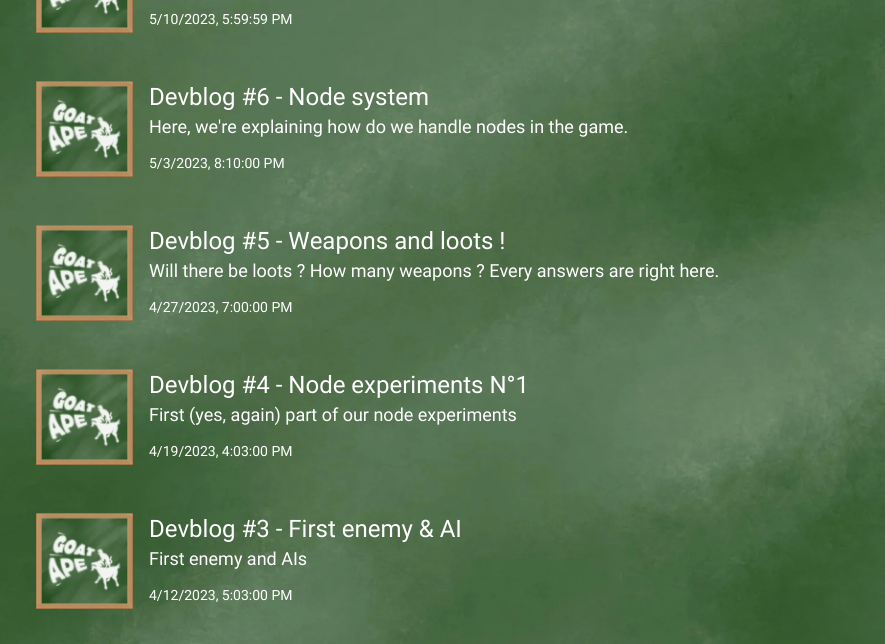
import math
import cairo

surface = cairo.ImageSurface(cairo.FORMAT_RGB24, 885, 644)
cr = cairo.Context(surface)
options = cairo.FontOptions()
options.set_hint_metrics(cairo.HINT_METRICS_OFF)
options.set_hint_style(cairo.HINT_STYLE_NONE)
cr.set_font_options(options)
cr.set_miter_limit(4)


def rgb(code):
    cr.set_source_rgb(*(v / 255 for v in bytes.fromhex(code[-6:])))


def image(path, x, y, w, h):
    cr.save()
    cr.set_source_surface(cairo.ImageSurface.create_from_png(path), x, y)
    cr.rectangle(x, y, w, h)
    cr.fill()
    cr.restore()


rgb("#ffffff")
cr.paint()
image("img/1.png", 0, 0, 885, 644)
image("img/2.png", 36, 0, 97, 33)
image("img/3.png", 36, 81, 97, 96)
image("img/3.png", 36, 225, 97, 96)
image("img/3.png", 36, 369, 97, 96)
image("img/3.png", 36, 513, 97, 96)
cr.select_font_face("Roboto")
cr.set_font_size(14)
rgb("#ffffff")
cr.move_to(149, 24)
cr.show_text("5/10/2023, 5:59:59 PM")
cr.set_font_size(24)
cr.move_to(149, 105)
cr.show_text("Devblog #6 - Node system")
cr.set_font_size(18)
cr.move_to(149, 133)
cr.show_text("Here, we're explaining how do we handle nodes in the game.")
cr.set_font_size(14)
cr.move_to(149, 168)
cr.show_text("5/3/2023, 8:10:00 PM")
cr.set_font_size(24)
cr.move_to(149, 249)
cr.show_text("Devblog #5 - Weapons and loots !")
cr.set_font_size(18)
cr.move_to(149, 277)
cr.show_text("Will there be loots ? How many weapons ? Every answers are right here.")
cr.set_font_size(14)
cr.move_to(149, 312)
cr.show_text("4/27/2023, 7:00:00 PM")
cr.set_font_size(24)
cr.move_to(149, 393)
cr.show_text("Devblog #4 - Node experiments N°1")
cr.set_font_size(18)
cr.move_to(149, 421)
cr.show_text("First (yes, again) part of our node experiments")
cr.set_font_size(14)
cr.move_to(149, 456)
cr.show_text("4/19/2023, 4:03:00 PM")
cr.set_font_size(24)
cr.move_to(149, 537)
cr.show_text("Devblog #3 - First enemy & AI")
cr.set_font_size(18)
cr.move_to(149, 565)
cr.show_text("First enemy and AIs")
cr.set_font_size(14)
cr.move_to(149, 600)
cr.show_text("4/12/2023, 5:03:00 PM")
surface.write_to_png("page.png")
